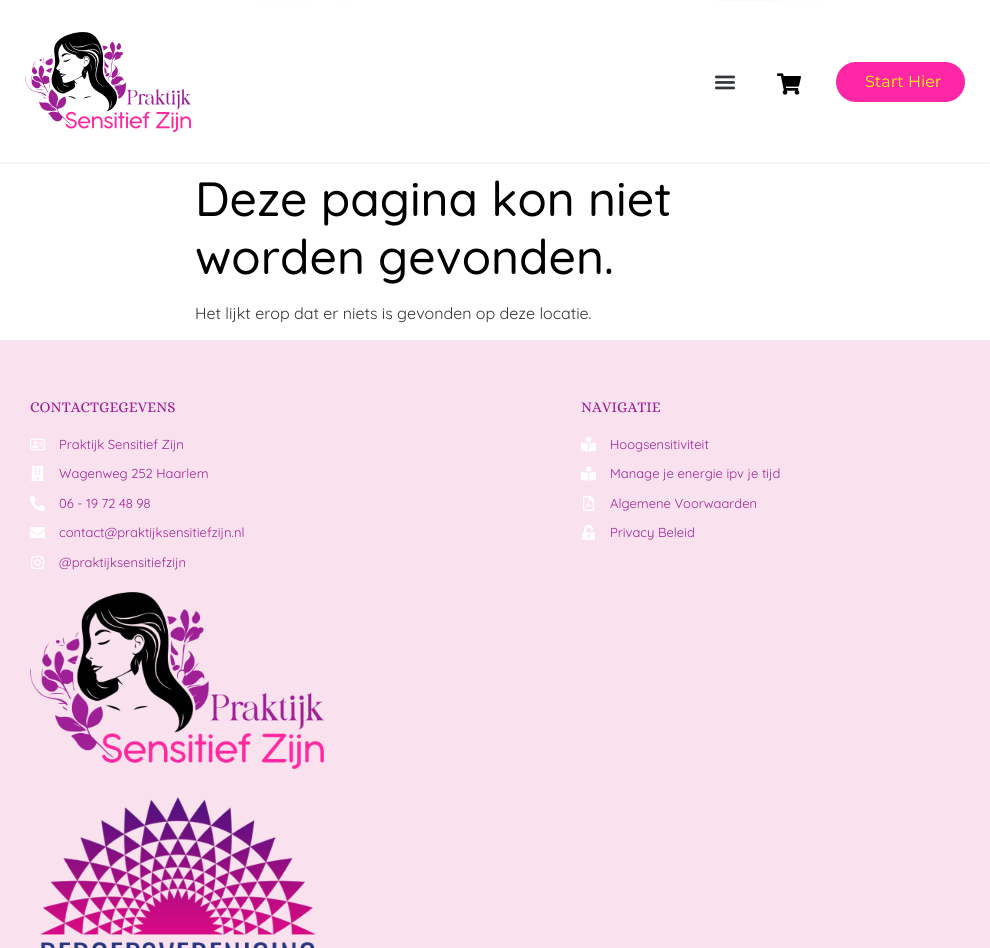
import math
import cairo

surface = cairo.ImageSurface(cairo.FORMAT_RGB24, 990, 948)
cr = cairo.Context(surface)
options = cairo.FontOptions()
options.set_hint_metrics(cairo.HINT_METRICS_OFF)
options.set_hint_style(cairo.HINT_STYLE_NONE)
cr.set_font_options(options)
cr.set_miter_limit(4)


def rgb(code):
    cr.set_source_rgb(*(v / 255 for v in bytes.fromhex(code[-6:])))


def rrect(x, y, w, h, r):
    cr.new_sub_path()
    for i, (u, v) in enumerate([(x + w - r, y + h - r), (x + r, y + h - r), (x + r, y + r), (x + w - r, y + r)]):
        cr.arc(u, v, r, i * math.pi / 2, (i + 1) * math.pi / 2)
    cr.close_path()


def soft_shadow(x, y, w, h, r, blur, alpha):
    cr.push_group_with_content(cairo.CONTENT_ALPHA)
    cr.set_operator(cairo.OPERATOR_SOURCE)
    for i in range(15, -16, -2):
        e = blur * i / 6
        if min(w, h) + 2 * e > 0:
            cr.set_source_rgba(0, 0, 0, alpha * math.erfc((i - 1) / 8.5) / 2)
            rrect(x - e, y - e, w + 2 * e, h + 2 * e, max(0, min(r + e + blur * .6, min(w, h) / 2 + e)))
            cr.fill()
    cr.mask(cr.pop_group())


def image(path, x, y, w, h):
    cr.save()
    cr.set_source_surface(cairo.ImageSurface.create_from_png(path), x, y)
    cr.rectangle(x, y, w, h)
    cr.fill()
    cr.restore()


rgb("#ffffff")
cr.paint()
rgb("#f2f6f5")
cr.rectangle(249, 0, 741, 2)
cr.fill()
image("img/1.png", 0, 0, 990, 2)
cr.save()
cr.rectangle(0, 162, 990, 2)
cr.clip()
rgb("#000000")
soft_shadow(0, 4, 990, 160, 0, 1, 0.05)
cr.restore()
image("img/2.png", 25, 32, 166, 100)
image("img/3.png", 714, 75, 22, 15)
image("img/4.png", 777, 73, 24, 22)
rgb("#ff27a5")
rrect(836, 62, 129, 40, 20)
cr.fill()
rgb("#f9e2ee")
cr.rectangle(0, 340, 990, 608)
cr.fill()
image("img/5.png", 30, 438, 15, 13)
image("img/6.png", 31, 466, 13, 15)
image("img/7.png", 30, 496, 15, 15)
image("img/8.png", 30, 527, 15, 11)
image("img/9.png", 31, 556, 13, 13)
image("img/10.png", 581, 437, 15, 15)
image("img/10.png", 581, 466, 15, 15)
image("img/11.png", 583, 496, 11, 15)
image("img/12.png", 582, 525, 13, 15)
image("img/13.png", 30, 592, 294, 177)
image("img/14.png", 40, 797, 276, 151)
cr.select_font_face("Montserrat")
cr.set_font_size(16)
rgb("#ffff00")
cr.move_to(865, 87)
cr.show_text("Start Hier")
cr.select_font_face("Quicksand Medium")
cr.set_font_size(48)
rgb("#000000")
cr.move_to(195, 216)
cr.show_text("Deze pagina kon niet")
cr.move_to(195, 274)
cr.show_text("worden gevonden.")
cr.select_font_face("Quicksand")
cr.set_font_size(16)
rgb("#333333")
cr.move_to(195, 319)
cr.show_text("Het lijkt erop dat er niets is gevonden op deze locatie.")
cr.select_font_face("Alice")
cr.set_font_size(15)
rgb("#9f2096")
cr.move_to(30, 412)
cr.show_text("CONTACTGEGEVENS")
cr.select_font_face("Quicksand")
cr.set_font_size(13)
for x, y, s in [
    (59, 449, "Praktijk Sensitief Zijn"),
    (59, 478, "Wagenweg 252 Haarlem"),
    (59, 508, "06 - 19 72 48 98"),
    (59, 537, "contact@praktijksensitiefzijn.nl"),
    (59, 567, "@praktijksensitiefzijn"),
]:
    cr.move_to(x, y)
    cr.show_text(s)
cr.select_font_face("Alice")
cr.set_font_size(15)
cr.move_to(581, 412)
cr.show_text("NAVIGATIE")
cr.select_font_face("Quicksand")
cr.set_font_size(13)
for x, y, s in [
    (610, 449, "Hoogsensitiviteit"),
    (610, 478, "Manage je energie ipv je tijd"),
    (610, 508, "Algemene Voorwaarden"),
    (610, 537, "Privacy Beleid"),
]:
    cr.move_to(x, y)
    cr.show_text(s)
surface.write_to_png("page.png")
